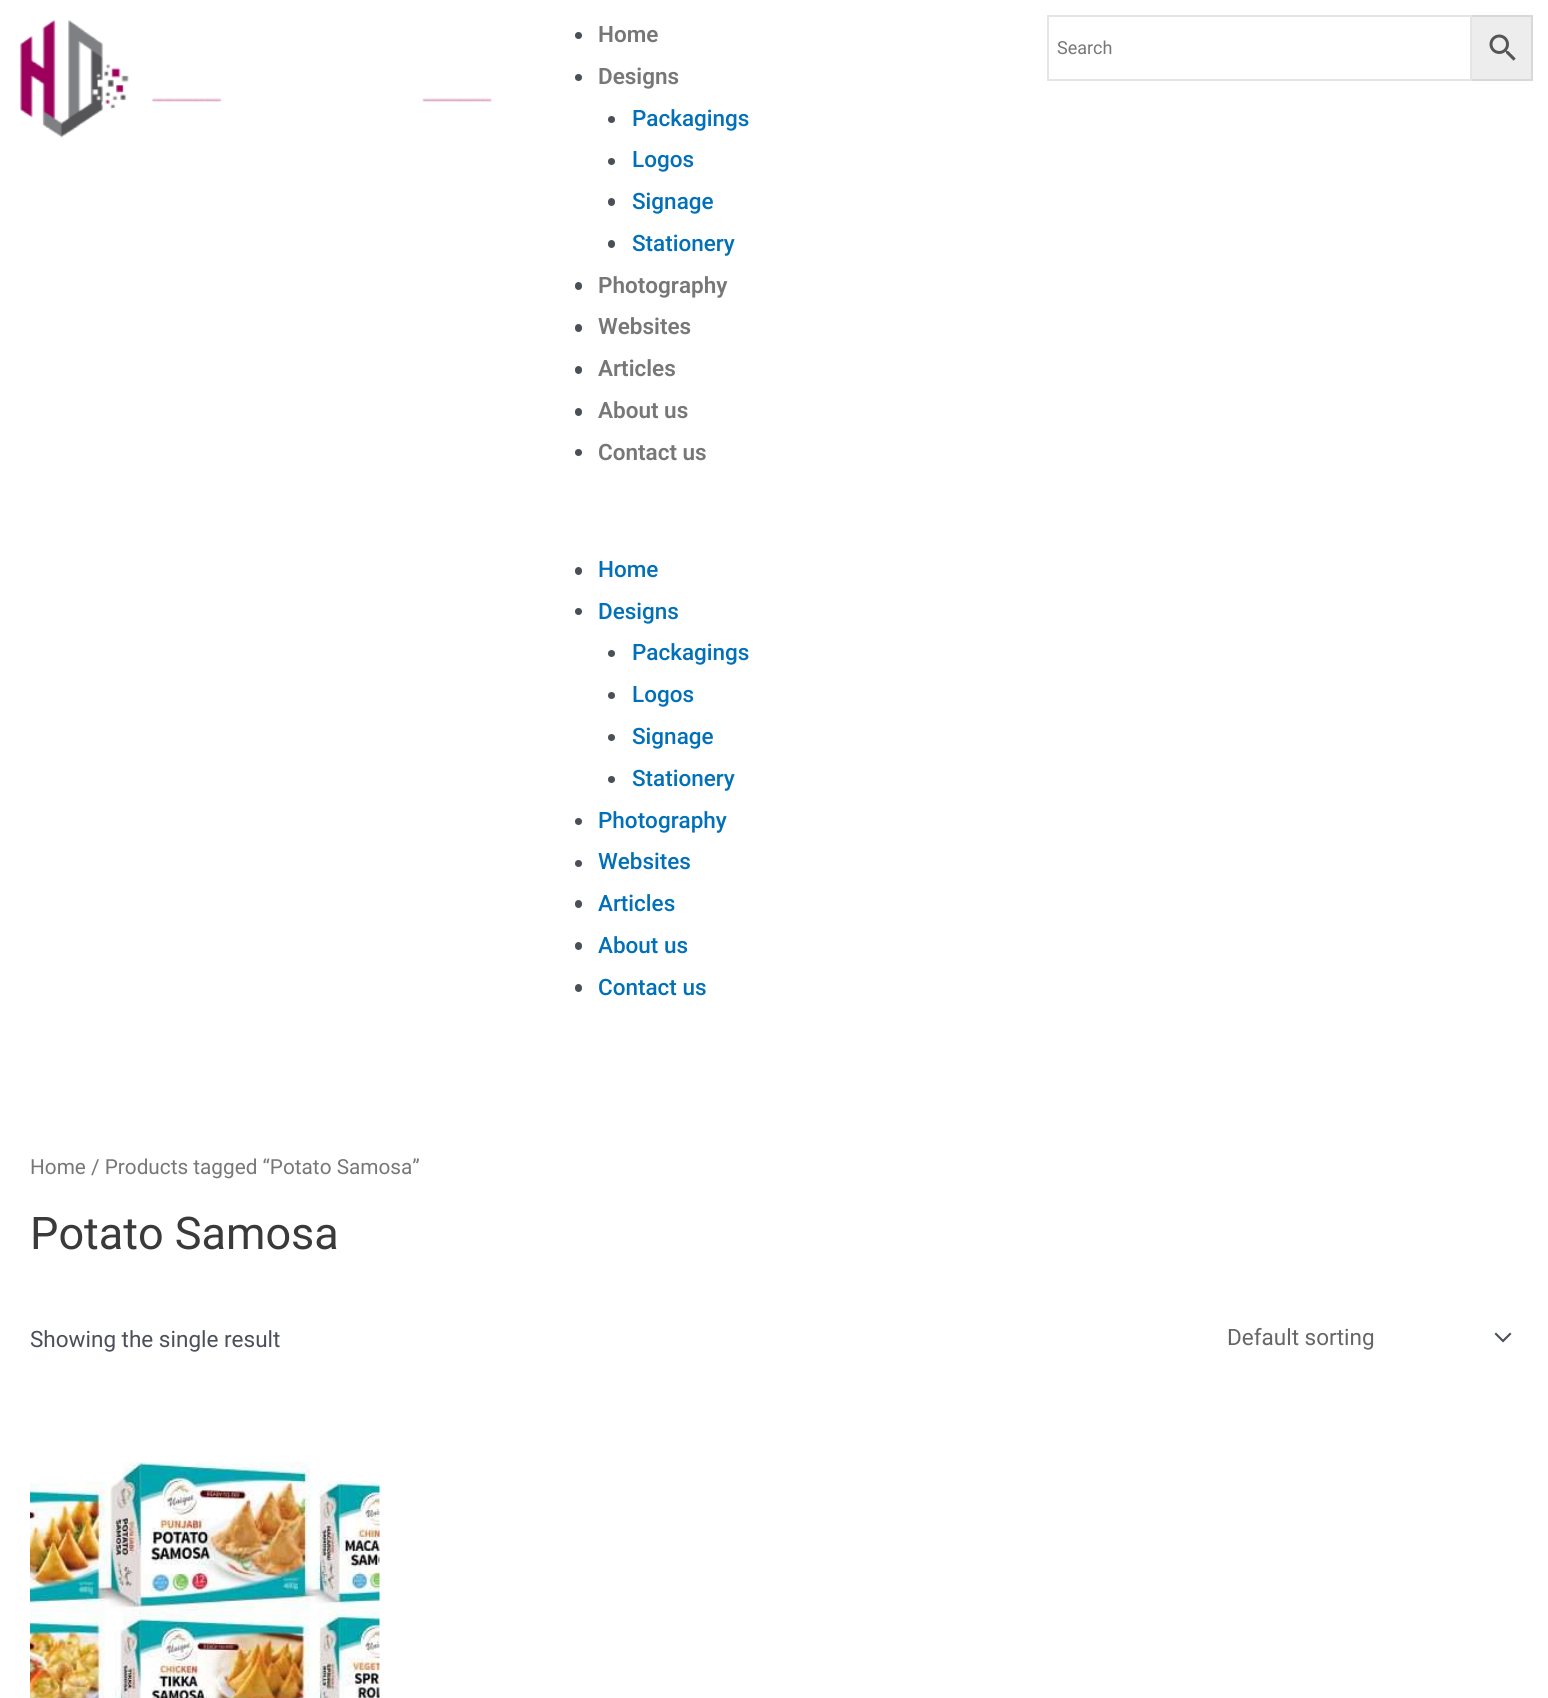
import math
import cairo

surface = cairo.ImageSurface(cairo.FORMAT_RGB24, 1548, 1698)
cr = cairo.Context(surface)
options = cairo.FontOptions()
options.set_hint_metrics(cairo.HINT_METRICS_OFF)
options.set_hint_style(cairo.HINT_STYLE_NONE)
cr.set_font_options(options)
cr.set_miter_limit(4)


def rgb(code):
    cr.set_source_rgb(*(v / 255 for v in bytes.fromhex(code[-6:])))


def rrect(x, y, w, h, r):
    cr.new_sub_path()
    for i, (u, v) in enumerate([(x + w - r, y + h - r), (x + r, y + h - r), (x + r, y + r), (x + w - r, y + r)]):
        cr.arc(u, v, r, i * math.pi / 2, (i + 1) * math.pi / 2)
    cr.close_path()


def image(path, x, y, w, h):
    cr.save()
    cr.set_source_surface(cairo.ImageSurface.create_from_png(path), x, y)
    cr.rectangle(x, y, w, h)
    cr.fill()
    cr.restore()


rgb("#ffffff")
cr.paint()
image("img/1.png", 20, 20, 472, 118)
rgb("#4b4f58")
cr.arc(578.5, 35.5, 3.5, 0, 2 * math.pi)
cr.fill()
cr.arc(578.5, 77.5, 3.5, 0, 2 * math.pi)
cr.fill()
cr.arc(611.5, 119.5, 3.5, 0, 2 * math.pi)
cr.fill()
cr.arc(611.5, 161.5, 3.5, 0, 2 * math.pi)
cr.fill()
rrect(608, 198, 7, 8, 3.5)
cr.fill()
rrect(608, 240, 7, 8, 3.5)
cr.fill()
rrect(575, 282, 7, 8, 3.5)
cr.fill()
rrect(575, 324, 7, 8, 3.5)
cr.fill()
rrect(575, 366, 7, 8, 3.5)
cr.fill()
rrect(575, 408, 7, 8, 3.5)
cr.fill()
cr.arc(578.5, 452.5, 3.5, 0, 2 * math.pi)
cr.fill()
rrect(575, 567, 7, 8, 3.5)
cr.fill()
cr.arc(578.5, 611.5, 3.5, 0, 2 * math.pi)
cr.fill()
cr.arc(611.5, 653.5, 3.5, 0, 2 * math.pi)
cr.fill()
cr.arc(611.5, 695.5, 3.5, 0, 2 * math.pi)
cr.fill()
cr.arc(611.5, 737.5, 3.5, 0, 2 * math.pi)
cr.fill()
cr.arc(611.5, 779.5, 3.5, 0, 2 * math.pi)
cr.fill()
cr.arc(578.5, 821.5, 3.5, 0, 2 * math.pi)
cr.fill()
cr.arc(578.5, 863.5, 3.5, 0, 2 * math.pi)
cr.fill()
rrect(575, 900, 7, 8, 3.5)
cr.fill()
rrect(575, 942, 7, 8, 3.5)
cr.fill()
rrect(575, 984, 7, 8, 3.5)
cr.fill()
rgb("#ededed")
cr.rectangle(1471, 16, 61, 64)
cr.fill_preserve()
rgb("#d8d8d8")
cr.stroke()
cr.rectangle(1048, 16, 423, 64)
rgb("#e5e5e5")
cr.stroke()
image("img/2.png", 1489, 34, 27, 27)
rgb("#4b4f58")
cr.new_path()
cr.move_to(1494.5, 1334)
cr.line_to(1503, 1342.5)
cr.line_to(1511.5, 1334)
cr.line_to(1510, 1332.5)
cr.line_to(1503, 1339.5)
cr.line_to(1496, 1332.5)
cr.close_path()
cr.fill()
image("img/3.png", 30, 1461, 350, 237)
cr.select_font_face("Roboto SemiBold")
cr.set_font_size(22.5)
rgb("#777777")
cr.move_to(598, 42)
cr.show_text("Home")
cr.move_to(598, 84)
cr.show_text("Designs")
cr.select_font_face("Roboto Medium")
rgb("#0170b9")
for x, y, s in [
    (632, 126, "Packagings"),
    (632, 167, "Logos"),
    (632, 209, "Signage"),
    (632, 251, "Stationery"),
]:
    cr.move_to(x, y)
    cr.show_text(s)
cr.select_font_face("Roboto SemiBold")
rgb("#777777")
for x, y, s in [
    (598, 293, "Photography"),
    (598, 334, "Websites"),
    (598, 376, "Articles"),
    (598, 418, "About us"),
    (598, 460, "Contact us"),
]:
    cr.move_to(x, y)
    cr.show_text(s)
cr.select_font_face("Roboto Medium")
rgb("#0170b9")
for x, y, s in [
    (598, 577, "Home"),
    (598, 619, "Designs"),
    (632, 660, "Packagings"),
    (632, 702, "Logos"),
    (632, 744, "Signage"),
    (632, 786, "Stationery"),
    (598, 828, "Photography"),
    (598, 869, "Websites"),
    (598, 911, "Articles"),
    (598, 953, "About us"),
    (598, 995, "Contact us"),
]:
    cr.move_to(x, y)
    cr.show_text(s)
cr.select_font_face("Roboto")
cr.set_font_size(18)
rgb("#777777")
cr.move_to(1057, 54)
cr.show_text("Search")
cr.set_font_size(20.75)
cr.move_to(30, 1174)
cr.show_text("Home / Products tagged “Potato Samosa”")
cr.set_font_size(45)
rgb("#3a3a3a")
cr.move_to(30, 1249)
cr.show_text("Potato Samosa")
cr.set_font_size(22.5)
rgb("#4b4f58")
cr.move_to(30, 1347)
cr.show_text("Showing the single result")
rgb("#666666")
cr.move_to(1227, 1345)
cr.show_text("Default sorting")
surface.write_to_png("page.png")
